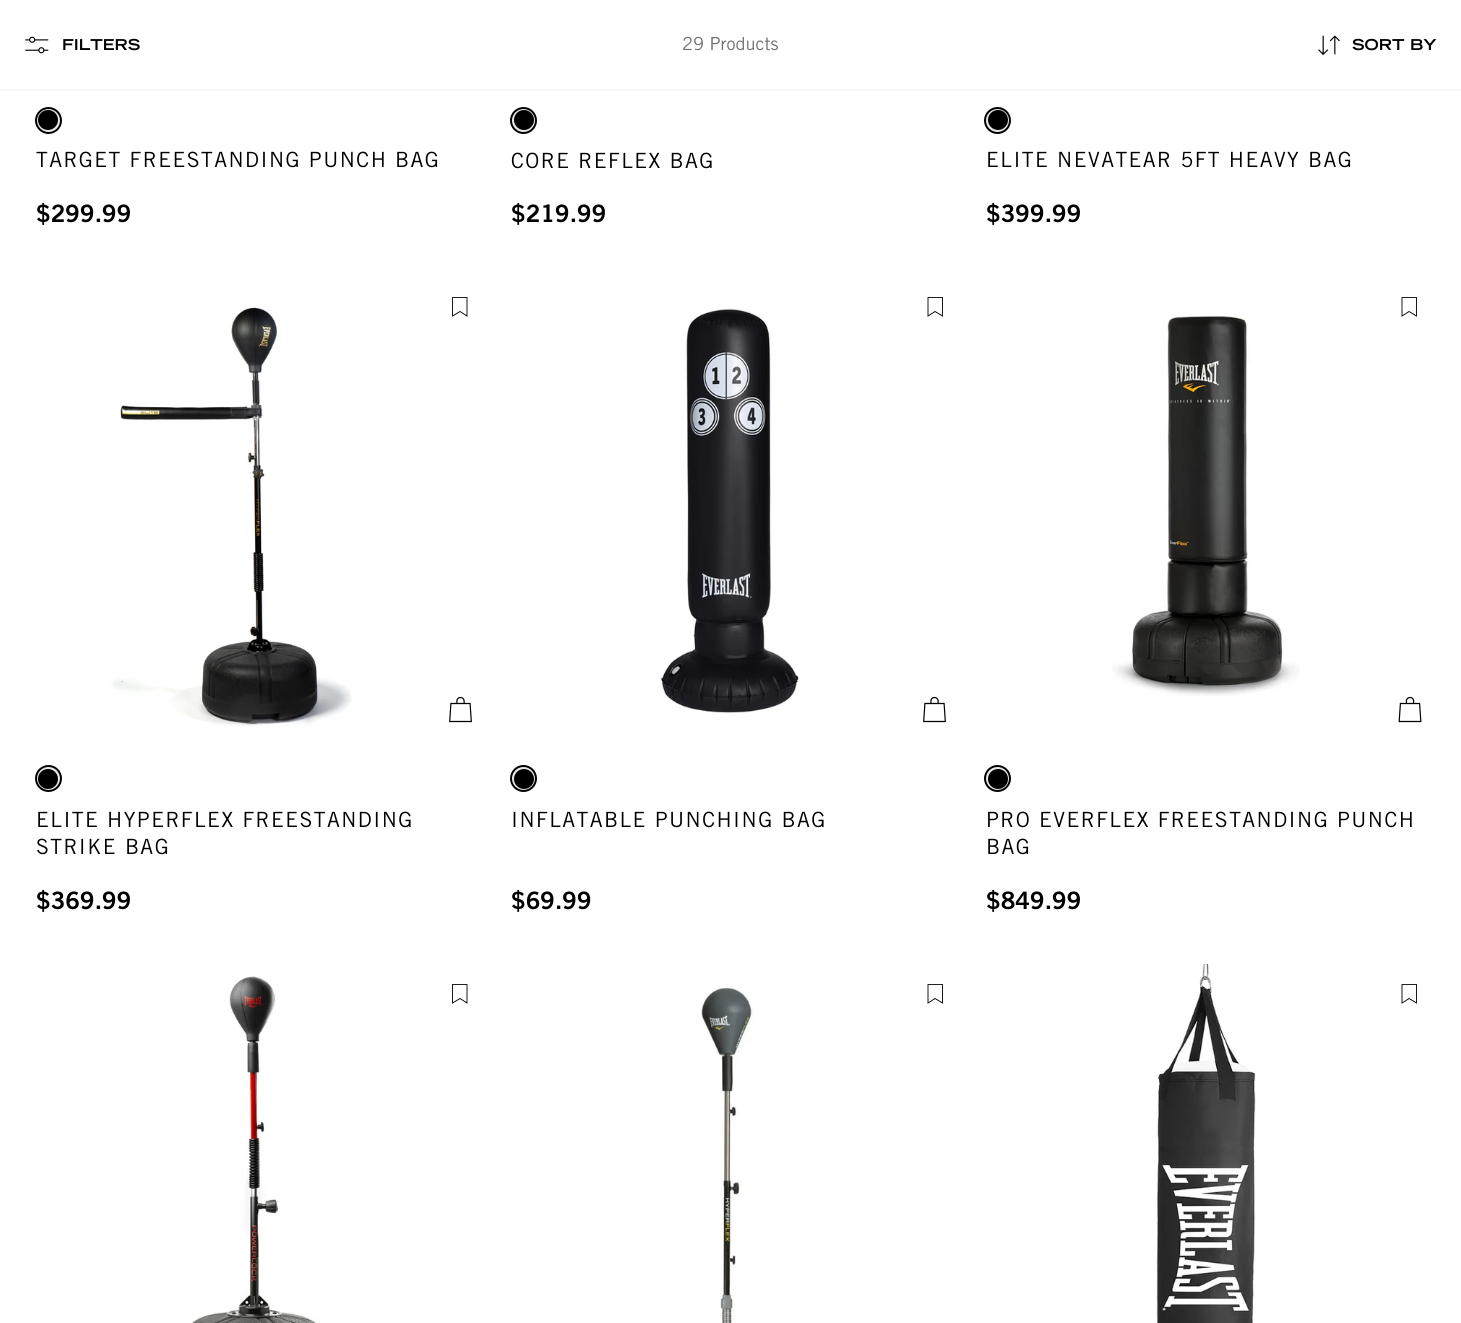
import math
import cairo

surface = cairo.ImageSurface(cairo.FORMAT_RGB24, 1461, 1323)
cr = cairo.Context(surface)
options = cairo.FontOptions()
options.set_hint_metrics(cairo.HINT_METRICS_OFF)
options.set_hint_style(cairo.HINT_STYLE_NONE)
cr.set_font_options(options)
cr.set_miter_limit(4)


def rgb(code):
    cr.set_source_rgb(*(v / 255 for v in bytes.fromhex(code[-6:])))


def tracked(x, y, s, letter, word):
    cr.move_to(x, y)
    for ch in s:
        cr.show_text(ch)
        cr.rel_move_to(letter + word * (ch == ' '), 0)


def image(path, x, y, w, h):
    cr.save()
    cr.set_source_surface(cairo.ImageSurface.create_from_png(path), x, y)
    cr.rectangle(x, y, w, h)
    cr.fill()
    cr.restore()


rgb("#ffffff")
cr.paint()
rgb("#f5f5f5")
cr.rectangle(0, 89, 1461, 2)
cr.fill()
image("img/1.png", 25, 36, 24, 18)
image("img/2.png", 1318, 35, 22, 21)
rgb("#000000")
cr.arc(48, 120, 11, 0, 2 * math.pi)
cr.fill_preserve()
rgb("#e8e8e8")
cr.stroke()
cr.arc(48.5, 120.5, 12.5, 0, 2 * math.pi)
rgb("#000000")
cr.stroke()
cr.arc(524, 120, 11, 0, 2 * math.pi)
cr.fill_preserve()
rgb("#e8e8e8")
cr.stroke()
cr.arc(523.5, 120.5, 12.5, 0, 2 * math.pi)
rgb("#000000")
cr.stroke()
cr.arc(998, 120, 11, 0, 2 * math.pi)
cr.fill_preserve()
rgb("#e8e8e8")
cr.stroke()
cr.arc(997.5, 120.5, 12.5, 0, 2 * math.pi)
rgb("#000000")
cr.stroke()
image("img/3.png", 111, 307, 241, 420)
cr.new_path()
cr.move_to(452.5, 297.5)
cr.line_to(467, 297.5)
cr.line_to(467, 316)
cr.line_to(460, 311.5)
cr.line_to(452.5, 316)
cr.close_path()
cr.set_line_width(0.9)
cr.stroke()
image("img/4.png", 449, 696, 23, 27)
cr.arc(48, 779, 11, 0, 2 * math.pi)
cr.fill_preserve()
rgb("#e8e8e8")
cr.set_line_width(2)
cr.stroke()
cr.arc(48.5, 778.5, 12.5, 0, 2 * math.pi)
rgb("#000000")
cr.stroke()
image("img/5.png", 557, 277, 347, 1)
image("img/6.png", 622, 277, 211, 436)
cr.new_path()
cr.move_to(928, 297.5)
cr.line_to(942.5, 297.5)
cr.line_to(942.5, 316)
cr.line_to(935, 311.5)
cr.line_to(928, 316)
cr.close_path()
cr.set_line_width(0.9)
cr.stroke()
image("img/4.png", 923, 696, 23, 27)
cr.arc(524, 779, 11, 0, 2 * math.pi)
cr.fill_preserve()
rgb("#e8e8e8")
cr.set_line_width(2)
cr.stroke()
cr.arc(523.5, 778.5, 12.5, 0, 2 * math.pi)
rgb("#000000")
cr.stroke()
cr.new_path()
cr.move_to(1402, 297.5)
cr.line_to(1416.5, 297.5)
cr.line_to(1416.5, 316)
cr.line_to(1409, 311.5)
cr.line_to(1402, 316)
cr.close_path()
cr.set_line_width(0.9)
cr.stroke()
image("img/7.png", 1112, 316, 188, 380)
image("img/8.png", 1398, 696, 24, 27)
cr.arc(998, 779, 11, 0, 2 * math.pi)
cr.fill_preserve()
rgb("#e8e8e8")
cr.set_line_width(2)
cr.stroke()
cr.arc(997.5, 778.5, 12.5, 0, 2 * math.pi)
rgb("#000000")
cr.stroke()
image("img/9.png", 192, 976, 127, 347)
cr.new_path()
cr.move_to(452.5, 984.5)
cr.line_to(467, 984.5)
cr.line_to(467, 1003)
cr.line_to(460, 998.5)
cr.line_to(452.5, 1003)
cr.close_path()
cr.set_line_width(0.9)
cr.stroke()
image("img/10.png", 701, 987, 53, 336)
cr.new_path()
cr.move_to(928, 984.5)
cr.line_to(942.5, 984.5)
cr.line_to(942.5, 1003)
cr.line_to(935, 998.5)
cr.line_to(928, 1003)
cr.close_path()
cr.stroke()
image("img/11.png", 1156, 964, 101, 359)
cr.new_path()
cr.move_to(1402, 984.5)
cr.line_to(1416.5, 984.5)
cr.line_to(1416.5, 1003)
cr.line_to(1409, 998.5)
cr.line_to(1402, 1003)
cr.close_path()
cr.stroke()
cr.select_font_face("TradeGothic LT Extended", cairo.FONT_SLANT_NORMAL, cairo.FONT_WEIGHT_BOLD)
cr.set_font_size(15)
cr.move_to(62, 50)
cr.show_text("FILTERS")
cr.select_font_face("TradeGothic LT")
cr.set_font_size(18)
rgb("#6f6f6f")
cr.move_to(682, 50)
cr.show_text("29 Products")
cr.select_font_face("TradeGothic LT Extended", cairo.FONT_SLANT_NORMAL, cairo.FONT_WEIGHT_BOLD)
cr.set_font_size(15)
rgb("#000000")
cr.move_to(1352, 50)
cr.show_text("SORT BY")
cr.select_font_face("TradeGothic LT")
cr.set_font_size(21)
tracked(36, 167, "TARGET FREESTANDING PUNCH BAG", 1.45, 0)
cr.select_font_face("TradeGothic LT", cairo.FONT_SLANT_NORMAL, cairo.FONT_WEIGHT_BOLD)
cr.set_font_size(24)
cr.move_to(36, 222)
cr.show_text("$299.99")
cr.select_font_face("TradeGothic LT")
cr.set_font_size(21)
tracked(511, 168, "CORE REFLEX BAG", 1.45, 0)
cr.select_font_face("TradeGothic LT", cairo.FONT_SLANT_NORMAL, cairo.FONT_WEIGHT_BOLD)
cr.set_font_size(24)
cr.move_to(511, 222)
cr.show_text("$219.99")
cr.select_font_face("TradeGothic LT")
cr.set_font_size(21)
tracked(986, 167, "ELITE NEVATEAR 5FT HEAVY BAG", 1.45, 0)
cr.select_font_face("TradeGothic LT", cairo.FONT_SLANT_NORMAL, cairo.FONT_WEIGHT_BOLD)
cr.set_font_size(24)
cr.move_to(986, 222)
cr.show_text("$399.99")
cr.select_font_face("TradeGothic LT")
cr.set_font_size(21)
tracked(36, 827, "ELITE HYPERFLEX FREESTANDING", 1.45, 0)
tracked(36, 854, "STRIKE BAG", 1.45, 0)
cr.select_font_face("TradeGothic LT", cairo.FONT_SLANT_NORMAL, cairo.FONT_WEIGHT_BOLD)
cr.set_font_size(24)
cr.move_to(36, 909)
cr.show_text("$369.99")
cr.select_font_face("TradeGothic LT")
cr.set_font_size(21)
tracked(511, 827, "INFLATABLE PUNCHING BAG", 1.45, 0)
cr.select_font_face("TradeGothic LT", cairo.FONT_SLANT_NORMAL, cairo.FONT_WEIGHT_BOLD)
cr.set_font_size(24)
cr.move_to(511, 909)
cr.show_text("$69.99")
cr.select_font_face("TradeGothic LT")
cr.set_font_size(21)
tracked(986, 827, "PRO EVERFLEX FREESTANDING PUNCH", 1.45, 0)
tracked(986, 854, "BAG", 1.45, 0)
cr.select_font_face("TradeGothic LT", cairo.FONT_SLANT_NORMAL, cairo.FONT_WEIGHT_BOLD)
cr.set_font_size(24)
cr.move_to(986, 909)
cr.show_text("$849.99")
surface.write_to_png("page.png")
